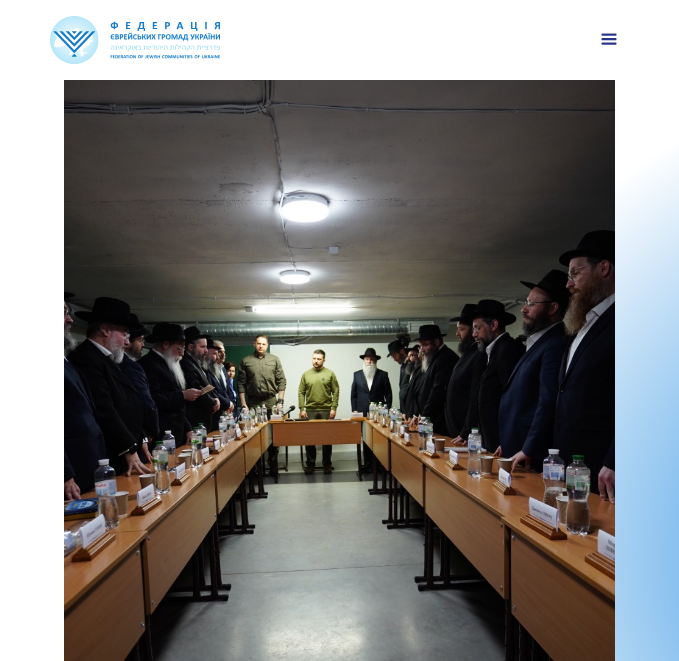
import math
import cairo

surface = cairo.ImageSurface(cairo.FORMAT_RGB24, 679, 661)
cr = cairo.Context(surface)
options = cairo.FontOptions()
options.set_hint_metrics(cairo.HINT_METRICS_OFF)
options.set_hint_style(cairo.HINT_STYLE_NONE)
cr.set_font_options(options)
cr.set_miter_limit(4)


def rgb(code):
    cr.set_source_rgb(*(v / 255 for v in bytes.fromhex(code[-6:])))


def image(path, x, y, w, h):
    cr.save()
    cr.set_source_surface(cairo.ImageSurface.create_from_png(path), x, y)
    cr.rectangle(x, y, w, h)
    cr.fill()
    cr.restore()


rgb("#ffffff")
cr.paint()
image("img/1.png", 50, 16, 170, 48)
image("img/2.png", 601, 33, 16, 12)
gradient = cairo.RadialGradient(923, 558, 0, 923, 558, 1079)
gradient.add_color_stop_rgba(0, 0.067, 0.506, 0.867, 1)
gradient.add_color_stop_rgba(0.45, 1, 1, 1, 1)
cr.set_source(gradient)
cr.rectangle(442, 144, 237, 517)
cr.fill()
image("img/3.png", 64, 80, 551, 581)
surface.write_to_png("page.png")
